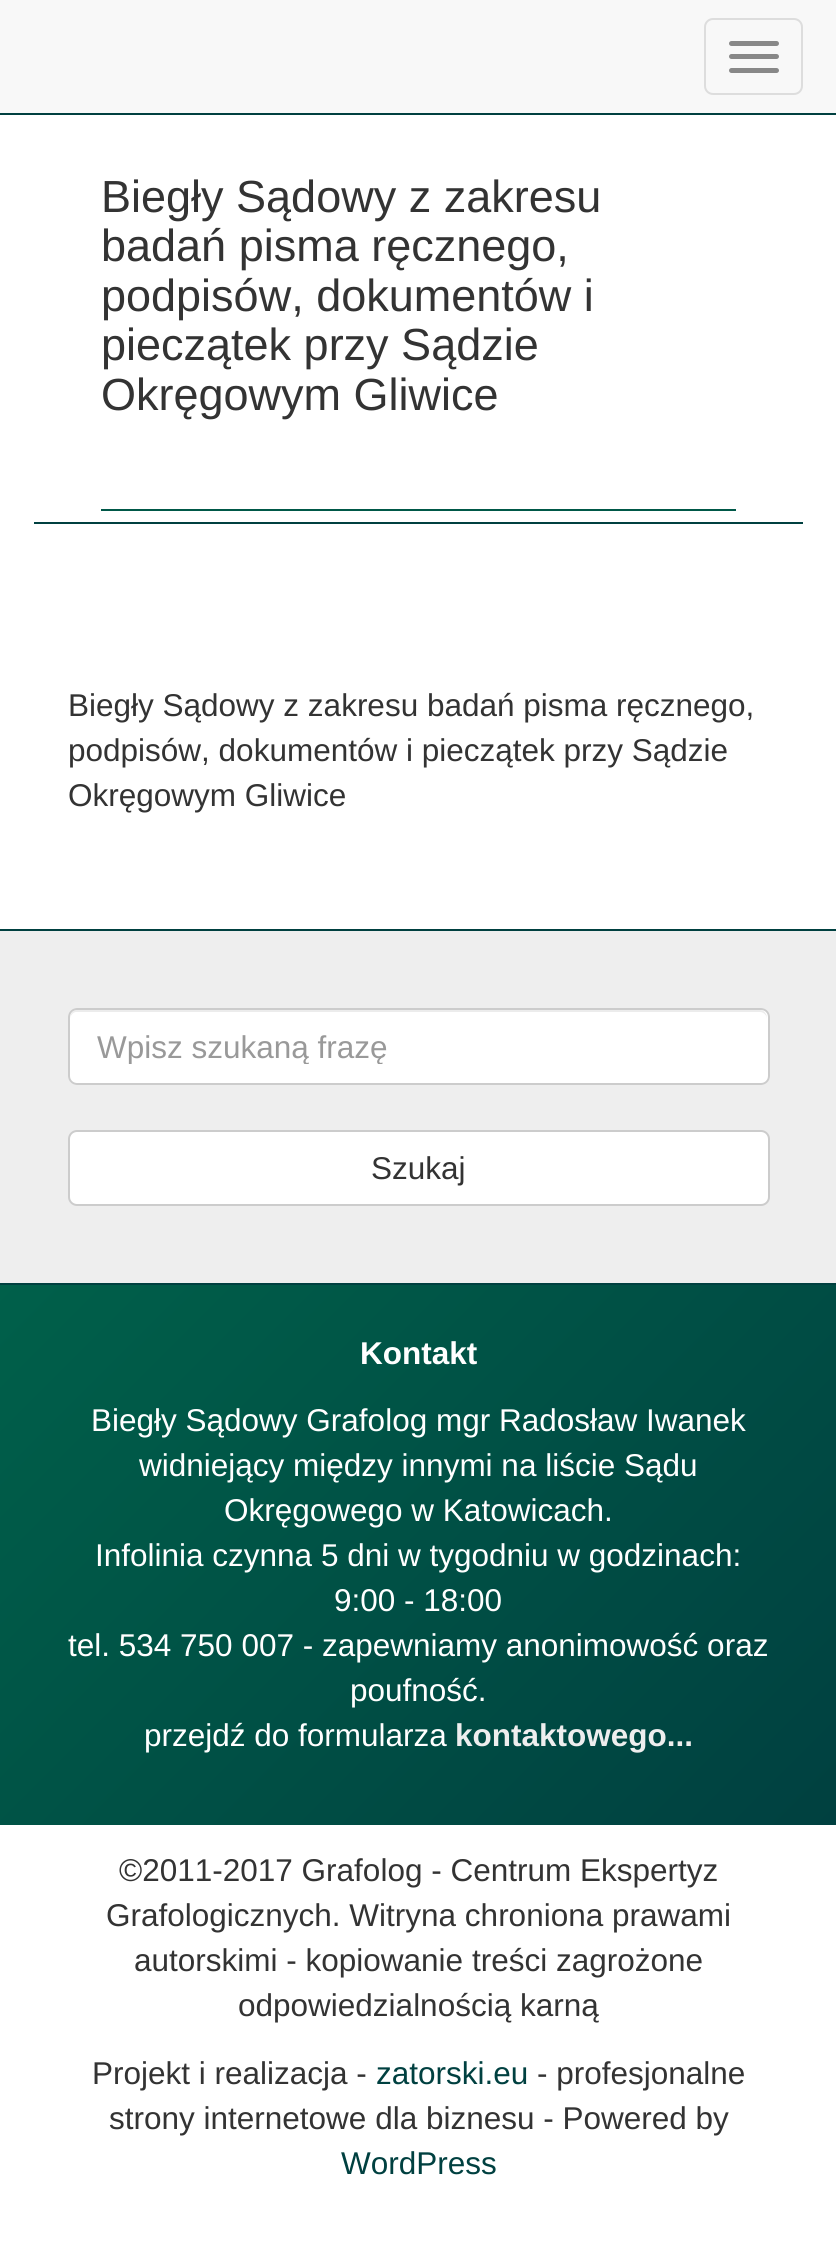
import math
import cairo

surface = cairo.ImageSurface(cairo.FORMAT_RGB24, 836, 2243)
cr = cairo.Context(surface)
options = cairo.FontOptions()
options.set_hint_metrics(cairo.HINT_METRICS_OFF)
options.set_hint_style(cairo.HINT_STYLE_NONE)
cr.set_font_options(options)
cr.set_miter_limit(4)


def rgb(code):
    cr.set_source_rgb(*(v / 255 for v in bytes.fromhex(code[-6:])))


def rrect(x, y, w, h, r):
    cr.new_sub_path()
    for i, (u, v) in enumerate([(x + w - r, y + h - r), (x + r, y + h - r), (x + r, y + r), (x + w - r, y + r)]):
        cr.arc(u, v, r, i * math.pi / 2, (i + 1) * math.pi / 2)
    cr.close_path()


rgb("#ffffff")
cr.paint()
rgb("#f8f8f8")
cr.rectangle(0, 0, 836, 113)
cr.fill()
rgb("#004040")
cr.rectangle(0, 113, 836, 2)
cr.fill()
rrect(705, 19, 97, 75, 8)
rgb("#dddddd")
cr.stroke()
rgb("#888888")
rrect(729, 41, 50, 5, 2.5)
cr.fill()
rrect(729, 54, 50, 5, 2.5)
cr.fill()
rrect(729, 68, 50, 5, 2.5)
cr.fill()
for x, y, w, h, color in [
    (34, 522, 769, 2, "#004040"),
    (101, 509, 635, 2, "#005848"),
    (0, 931, 836, 352, "#eeeeee"),
    (0, 929, 836, 2, "#004040"),
]:
    rgb(color)
    cr.rectangle(x, y, w, h)
    cr.fill()
rgb("#ffffff")
rrect(68, 1008, 702, 77, 9)
cr.fill()
rgb("#ececec")
cr.new_path()
cr.move_to(76, 1012)
cr.line_to(760, 1012)
cr.curve_to(764, 1012, 767, 1016, 767, 1019)
cr.curve_to(767, 1015, 765, 1010, 760, 1010)
cr.line_to(77, 1010)
cr.curve_to(72, 1010, 70, 1015, 70, 1019)
cr.curve_to(70, 1016, 73, 1012, 76, 1012)
cr.close_path()
cr.fill()
rrect(69, 1009, 700, 75, 8)
rgb("#cccccc")
cr.stroke()
rgb("#ffffff")
rrect(69, 1131, 700, 74, 8)
cr.fill_preserve()
rgb("#cccccc")
cr.stroke()
gradient = cairo.LinearGradient(74, 1211, 763, 1899)
gradient.add_color_stop_rgba(0, 0, 0.376, 0.29, 1)
gradient.add_color_stop_rgba(1, 0, 0.251, 0.251, 1)
cr.set_source(gradient)
cr.rectangle(0, 1285, 836, 540)
cr.fill()
rgb("#004040")
cr.rectangle(0, 1283, 836, 2)
cr.fill()
cr.select_font_face("Liberation Sans")
cr.set_font_size(45)
rgb("#333333")
for x, y, s in [
    (101, 212, "Biegły Sądowy z zakresu"),
    (101, 261, "badań pisma ręcznego,"),
    (101, 311, "podpisów, dokumentów i"),
    (101, 360, "pieczątek przy Sądzie"),
    (101, 410, "Okręgowym Gliwice"),
]:
    cr.move_to(x, y)
    cr.show_text(s)
cr.set_font_size(31.5)
for x, y, s in [
    (68, 716, "Biegły Sądowy z zakresu badań pisma ręcznego,"),
    (68, 761, "podpisów, dokumentów i pieczątek przy Sądzie"),
    (68, 806, "Okręgowym Gliwice"),
]:
    cr.move_to(x, y)
    cr.show_text(s)
cr.save()
cr.rectangle(97, 1028, 634, 36)
cr.clip()
rgb("#999999")
cr.move_to(97, 1058)
cr.show_text("Wpisz szukaną frazę")
cr.restore()
cr.move_to(371, 1179)
cr.show_text("Szukaj")
cr.select_font_face("Liberation Sans", cairo.FONT_SLANT_NORMAL, cairo.FONT_WEIGHT_BOLD)
rgb("#ffffff")
cr.move_to(360, 1364)
cr.show_text("Kontakt")
cr.select_font_face("Liberation Sans")
for x, y, s in [
    (91, 1431, "Biegły Sądowy Grafolog mgr Radosław Iwanek"),
    (139, 1476, "widniejący między innymi na liście Sądu"),
    (224, 1521, "Okręgowego w Katowicach."),
    (95, 1566, "Infolinia czynna 5 dni w tygodniu w godzinach:"),
    (334, 1611, "9:00 - 18:00"),
    (68, 1656, "tel. 534 750 007 - zapewniamy anonimowość oraz"),
    (350, 1701, "poufność."),
    (144, 1746, "przejdź do formularza"),
]:
    cr.move_to(x, y)
    cr.show_text(s)
cr.select_font_face("Liberation Sans", cairo.FONT_SLANT_NORMAL, cairo.FONT_WEIGHT_BOLD)
rgb("#eeeeee")
cr.move_to(455, 1746)
cr.show_text("kontaktowego...")
cr.select_font_face("Liberation Sans")
rgb("#333333")
for x, y, s in [
    (119, 1881, "©2011-2017 Grafolog - Centrum Ekspertyz"),
    (106, 1926, "Grafologicznych. Witryna chroniona prawami"),
    (134, 1971, "autorskimi - kopiowanie treści zagrożone"),
    (238, 2016, "odpowiedzialnością karną"),
    (92, 2084, "Projekt i realizacja -"),
]:
    cr.move_to(x, y)
    cr.show_text(s)
rgb("#004040")
cr.move_to(376, 2084)
cr.show_text("zatorski.eu")
rgb("#333333")
cr.move_to(537, 2084)
cr.show_text("- profesjonalne")
cr.move_to(109, 2129)
cr.show_text("strony internetowe dla biznesu - Powered by")
rgb("#004040")
cr.move_to(341, 2174)
cr.show_text("WordPress")
surface.write_to_png("page.png")
